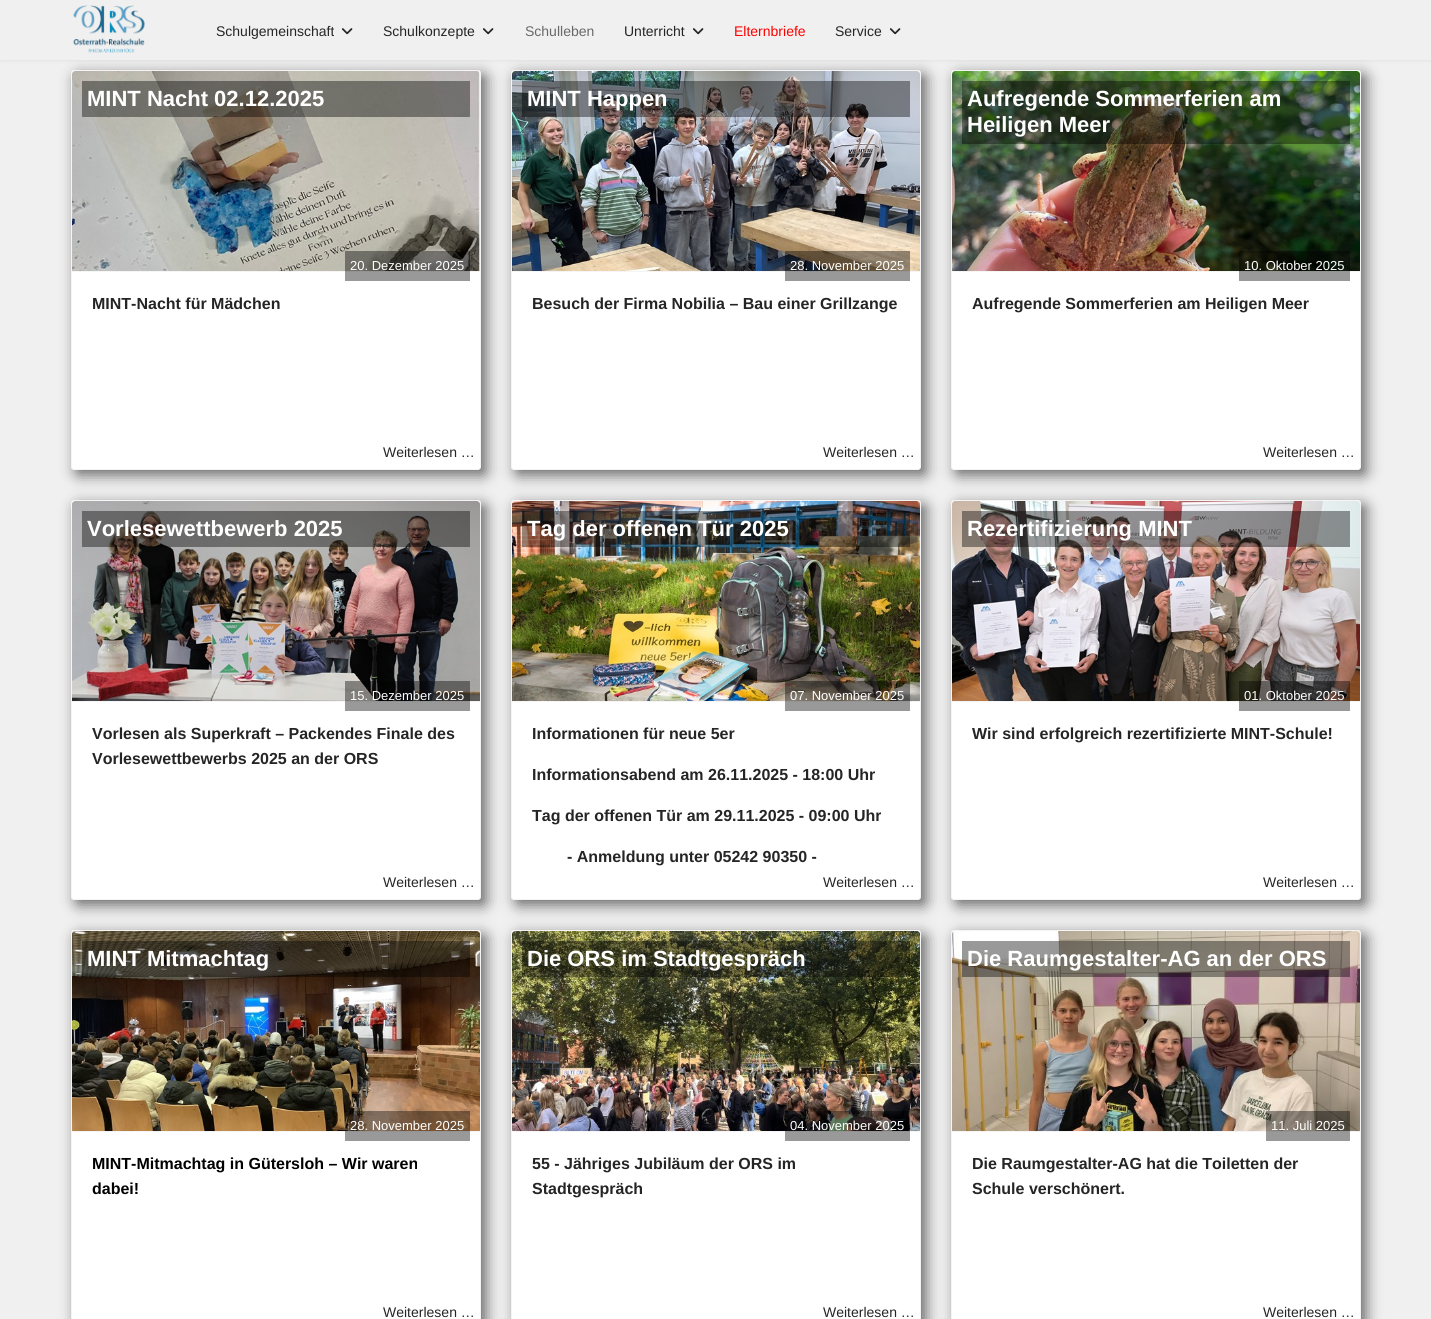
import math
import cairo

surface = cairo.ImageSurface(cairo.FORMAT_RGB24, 1431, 1319)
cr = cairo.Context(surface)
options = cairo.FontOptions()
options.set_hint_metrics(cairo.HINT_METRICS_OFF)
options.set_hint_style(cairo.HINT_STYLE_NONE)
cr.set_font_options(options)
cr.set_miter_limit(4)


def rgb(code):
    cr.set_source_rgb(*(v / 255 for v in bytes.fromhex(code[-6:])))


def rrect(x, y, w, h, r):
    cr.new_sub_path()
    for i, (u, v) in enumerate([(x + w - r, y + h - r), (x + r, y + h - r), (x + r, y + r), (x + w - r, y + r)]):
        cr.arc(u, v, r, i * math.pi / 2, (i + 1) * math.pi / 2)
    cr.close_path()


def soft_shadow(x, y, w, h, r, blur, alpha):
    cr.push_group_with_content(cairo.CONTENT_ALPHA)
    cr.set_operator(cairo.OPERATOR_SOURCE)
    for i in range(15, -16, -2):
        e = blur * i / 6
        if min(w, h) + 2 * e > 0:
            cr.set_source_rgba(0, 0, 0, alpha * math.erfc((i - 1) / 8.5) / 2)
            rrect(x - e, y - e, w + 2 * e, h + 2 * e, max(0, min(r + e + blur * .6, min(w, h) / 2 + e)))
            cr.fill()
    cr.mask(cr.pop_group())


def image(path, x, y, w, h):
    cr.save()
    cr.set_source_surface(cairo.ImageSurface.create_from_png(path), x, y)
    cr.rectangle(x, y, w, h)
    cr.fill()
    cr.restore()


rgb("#f0f0f0")
cr.paint()
rgb("#000000")
soft_shadow(0, 0, 1431, 60, 0, 2, 0.1)
rgb("#666666")
soft_shadow(76, 75, 410, 400, 3, 7.5, 1)
soft_shadow(516, 75, 410, 400, 3, 7.5, 1)
soft_shadow(956, 75, 410, 400, 3, 7.5, 1)
rgb("#f0f0f0")
cr.rectangle(0, 0, 1431, 60)
cr.fill()
image("img/1.png", 73, 5, 72, 48)
image("img/2.png", 342, 28, 11, 7)
image("img/2.png", 483, 28, 11, 7)
image("img/2.png", 693, 28, 11, 7)
image("img/2.png", 890, 28, 11, 7)
rgb("#ffffff")
rrect(71.5, 70.5, 409, 399, 2.5)
cr.fill_preserve()
rgb("#f5f5f5")
cr.set_line_width(1)
cr.stroke()
cr.rectangle(72, 271, 408, 1)
cr.fill()
image("img/3.png", 72, 71, 408, 200)
cr.set_source_rgba(0, 0, 0, 0.4)
cr.rectangle(82, 81, 388, 36)
cr.fill()
cr.rectangle(345, 251, 125, 30)
cr.fill()
rgb("#ffffff")
rrect(511.5, 70.5, 409, 399, 2.5)
cr.fill_preserve()
rgb("#f5f5f5")
cr.stroke()
cr.rectangle(512, 271, 408, 1)
cr.fill()
image("img/4.png", 512, 71, 408, 200)
cr.set_source_rgba(0, 0, 0, 0.4)
cr.rectangle(522, 81, 388, 36)
cr.fill()
cr.rectangle(785, 251, 125, 30)
cr.fill()
rgb("#ffffff")
rrect(951.5, 70.5, 409, 399, 2.5)
cr.fill_preserve()
rgb("#f5f5f5")
cr.stroke()
cr.rectangle(952, 271, 408, 1)
cr.fill()
image("img/5.png", 952, 71, 408, 200)
cr.set_source_rgba(0, 0, 0, 0.4)
cr.rectangle(962, 81, 388, 63)
cr.fill()
cr.rectangle(1239, 251, 111, 30)
cr.fill()
rgb("#666666")
soft_shadow(76, 505, 410, 400, 3, 7.5, 1)
rgb("#ffffff")
rrect(71.5, 500.5, 409, 399, 2.5)
cr.fill_preserve()
rgb("#f5f5f5")
cr.stroke()
cr.rectangle(72, 701, 408, 1)
cr.fill()
image("img/6.png", 72, 501, 408, 200)
cr.set_source_rgba(0, 0, 0, 0.4)
cr.rectangle(82, 511, 388, 36)
cr.fill()
cr.rectangle(345, 681, 125, 30)
cr.fill()
rgb("#666666")
soft_shadow(516, 505, 410, 400, 3, 7.5, 1)
rgb("#ffffff")
rrect(511.5, 500.5, 409, 399, 2.5)
cr.fill_preserve()
rgb("#f5f5f5")
cr.stroke()
cr.rectangle(512, 701, 408, 1)
cr.fill()
image("img/7.png", 512, 501, 408, 200)
cr.set_source_rgba(0, 0, 0, 0.4)
cr.rectangle(522, 511, 388, 36)
cr.fill()
cr.rectangle(785, 681, 125, 30)
cr.fill()
rgb("#666666")
soft_shadow(956, 505, 410, 400, 3, 7.5, 1)
rgb("#ffffff")
rrect(951.5, 500.5, 409, 399, 2.5)
cr.fill_preserve()
rgb("#f5f5f5")
cr.stroke()
cr.rectangle(952, 701, 408, 1)
cr.fill()
image("img/8.png", 952, 501, 408, 200)
cr.set_source_rgba(0, 0, 0, 0.4)
cr.rectangle(962, 511, 388, 36)
cr.fill()
cr.rectangle(1239, 681, 111, 30)
cr.fill()
rgb("#666666")
soft_shadow(76, 935, 410, 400, 3, 7.5, 1)
rgb("#ffffff")
rrect(71.5, 930.5, 409, 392, 2.5)
cr.fill_preserve()
rgb("#f5f5f5")
cr.stroke()
cr.rectangle(72, 1131, 408, 1)
cr.fill()
image("img/9.png", 72, 931, 408, 200)
cr.set_source_rgba(0, 0, 0, 0.4)
cr.rectangle(82, 941, 388, 36)
cr.fill()
cr.rectangle(345, 1111, 125, 30)
cr.fill()
rgb("#666666")
soft_shadow(516, 935, 410, 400, 3, 7.5, 1)
rgb("#ffffff")
rrect(511.5, 930.5, 409, 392, 2.5)
cr.fill_preserve()
rgb("#f5f5f5")
cr.stroke()
cr.rectangle(512, 1131, 408, 1)
cr.fill()
image("img/10.png", 512, 931, 408, 200)
cr.set_source_rgba(0, 0, 0, 0.4)
cr.rectangle(522, 941, 388, 36)
cr.fill()
cr.rectangle(785, 1111, 125, 30)
cr.fill()
rgb("#666666")
soft_shadow(956, 935, 410, 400, 3, 7.5, 1)
rgb("#ffffff")
rrect(951.5, 930.5, 409, 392, 2.5)
cr.fill_preserve()
rgb("#f5f5f5")
cr.stroke()
cr.rectangle(952, 1131, 408, 1)
cr.fill()
image("img/11.png", 952, 931, 408, 200)
cr.set_source_rgba(0, 0, 0, 0.4)
cr.rectangle(962, 941, 388, 36)
cr.fill()
cr.rectangle(1266, 1111, 84, 30)
cr.fill()
cr.select_font_face("Liberation Sans")
cr.set_font_size(14)
rgb("#252525")
cr.move_to(216, 36)
cr.show_text("Schulgemeinschaft")
cr.move_to(383, 36)
cr.show_text("Schulkonzepte")
rgb("#696969")
cr.move_to(525, 36)
cr.show_text("Schulleben")
rgb("#252525")
cr.move_to(624, 36)
cr.show_text("Unterricht")
rgb("#ff0000")
cr.move_to(734, 36)
cr.show_text("Elternbriefe")
rgb("#252525")
cr.move_to(835, 36)
cr.show_text("Service")
cr.select_font_face("Liberation Sans", cairo.FONT_SLANT_NORMAL, cairo.FONT_WEIGHT_BOLD)
cr.set_font_size(22)
rgb("#ffffff")
cr.move_to(87, 106)
cr.show_text("MINT Nacht 02.12.2025")
cr.select_font_face("Liberation Sans")
cr.set_font_size(13)
cr.move_to(350, 270)
cr.show_text("20. Dezember 2025")
cr.select_font_face("Liberation Sans", cairo.FONT_SLANT_NORMAL, cairo.FONT_WEIGHT_BOLD)
cr.set_font_size(16)
rgb("#252525")
cr.move_to(92, 309)
cr.show_text("MINT-Nacht für Mädchen")
cr.select_font_face("Liberation Sans")
cr.set_font_size(14)
cr.move_to(383, 457)
cr.show_text("Weiterlesen …")
cr.select_font_face("Liberation Sans", cairo.FONT_SLANT_NORMAL, cairo.FONT_WEIGHT_BOLD)
cr.set_font_size(22)
rgb("#ffffff")
cr.move_to(527, 106)
cr.show_text("MINT Happen")
cr.select_font_face("Liberation Sans")
cr.set_font_size(13)
cr.move_to(790, 270)
cr.show_text("28. November 2025")
cr.select_font_face("Liberation Sans", cairo.FONT_SLANT_NORMAL, cairo.FONT_WEIGHT_BOLD)
cr.set_font_size(16)
rgb("#252525")
cr.move_to(532, 309)
cr.show_text("Besuch der Firma Nobilia – Bau einer Grillzange")
cr.select_font_face("Liberation Sans")
cr.set_font_size(14)
cr.move_to(823, 457)
cr.show_text("Weiterlesen …")
cr.select_font_face("Liberation Sans", cairo.FONT_SLANT_NORMAL, cairo.FONT_WEIGHT_BOLD)
cr.set_font_size(22)
rgb("#ffffff")
cr.move_to(967, 106)
cr.show_text("Aufregende Sommerferien am")
cr.move_to(967, 132)
cr.show_text("Heiligen Meer")
cr.select_font_face("Liberation Sans")
cr.set_font_size(13)
cr.move_to(1244, 270)
cr.show_text("10. Oktober 2025")
cr.select_font_face("Liberation Sans", cairo.FONT_SLANT_NORMAL, cairo.FONT_WEIGHT_BOLD)
cr.set_font_size(16)
rgb("#252525")
cr.move_to(972, 309)
cr.show_text("Aufregende Sommerferien am Heiligen Meer")
cr.select_font_face("Liberation Sans")
cr.set_font_size(14)
cr.move_to(1263, 457)
cr.show_text("Weiterlesen …")
cr.select_font_face("Liberation Sans", cairo.FONT_SLANT_NORMAL, cairo.FONT_WEIGHT_BOLD)
cr.set_font_size(22)
rgb("#ffffff")
cr.move_to(87, 536)
cr.show_text("Vorlesewettbewerb 2025")
cr.select_font_face("Liberation Sans")
cr.set_font_size(13)
cr.move_to(350, 700)
cr.show_text("15. Dezember 2025")
cr.select_font_face("Liberation Sans", cairo.FONT_SLANT_NORMAL, cairo.FONT_WEIGHT_BOLD)
cr.set_font_size(16)
rgb("#252525")
cr.move_to(92, 739)
cr.show_text("Vorlesen als Superkraft – Packendes Finale des")
cr.move_to(92, 764)
cr.show_text("Vorlesewettbewerbs 2025 an der ORS")
cr.select_font_face("Liberation Sans")
cr.set_font_size(14)
cr.move_to(383, 887)
cr.show_text("Weiterlesen …")
cr.select_font_face("Liberation Sans", cairo.FONT_SLANT_NORMAL, cairo.FONT_WEIGHT_BOLD)
cr.set_font_size(22)
rgb("#ffffff")
cr.move_to(527, 536)
cr.show_text("Tag der offenen Tür 2025")
cr.select_font_face("Liberation Sans")
cr.set_font_size(13)
cr.move_to(790, 700)
cr.show_text("07. November 2025")
cr.select_font_face("Liberation Sans", cairo.FONT_SLANT_NORMAL, cairo.FONT_WEIGHT_BOLD)
cr.set_font_size(16)
rgb("#252525")
for x, y, s in [
    (532, 739, "Informationen für neue 5er"),
    (532, 780, "Informationsabend am 26.11.2025 - 18:00 Uhr"),
    (532, 821, "Tag der offenen Tür am 29.11.2025 - 09:00 Uhr"),
    (567, 862, "- Anmeldung unter 05242 90350 -"),
]:
    cr.move_to(x, y)
    cr.show_text(s)
cr.select_font_face("Liberation Sans")
cr.set_font_size(14)
cr.move_to(823, 887)
cr.show_text("Weiterlesen …")
cr.select_font_face("Liberation Sans", cairo.FONT_SLANT_NORMAL, cairo.FONT_WEIGHT_BOLD)
cr.set_font_size(22)
rgb("#ffffff")
cr.move_to(967, 536)
cr.show_text("Rezertifizierung MINT")
cr.select_font_face("Liberation Sans")
cr.set_font_size(13)
cr.move_to(1244, 700)
cr.show_text("01. Oktober 2025")
cr.select_font_face("Liberation Sans", cairo.FONT_SLANT_NORMAL, cairo.FONT_WEIGHT_BOLD)
cr.set_font_size(16)
rgb("#252525")
cr.move_to(972, 739)
cr.show_text("Wir sind erfolgreich rezertifizierte MINT-Schule!")
cr.select_font_face("Liberation Sans")
cr.set_font_size(14)
cr.move_to(1263, 887)
cr.show_text("Weiterlesen …")
cr.select_font_face("Liberation Sans", cairo.FONT_SLANT_NORMAL, cairo.FONT_WEIGHT_BOLD)
cr.set_font_size(22)
rgb("#ffffff")
cr.move_to(87, 966)
cr.show_text("MINT Mitmachtag")
cr.select_font_face("Liberation Sans")
cr.set_font_size(13)
cr.move_to(350, 1130)
cr.show_text("28. November 2025")
cr.select_font_face("Liberation Sans", cairo.FONT_SLANT_NORMAL, cairo.FONT_WEIGHT_BOLD)
cr.set_font_size(16)
rgb("#000000")
cr.move_to(92, 1169)
cr.show_text("MINT-Mitmachtag in Gütersloh – Wir waren")
cr.move_to(92, 1194)
cr.show_text("dabei!")
cr.select_font_face("Liberation Sans")
cr.set_font_size(14)
rgb("#252525")
cr.move_to(383, 1317)
cr.show_text("Weiterlesen …")
cr.select_font_face("Liberation Sans", cairo.FONT_SLANT_NORMAL, cairo.FONT_WEIGHT_BOLD)
cr.set_font_size(22)
rgb("#ffffff")
cr.move_to(527, 966)
cr.show_text("Die ORS im Stadtgespräch")
cr.select_font_face("Liberation Sans")
cr.set_font_size(13)
cr.move_to(790, 1130)
cr.show_text("04. November 2025")
cr.select_font_face("Liberation Sans", cairo.FONT_SLANT_NORMAL, cairo.FONT_WEIGHT_BOLD)
cr.set_font_size(16)
rgb("#252525")
cr.move_to(532, 1169)
cr.show_text("55 - Jähriges Jubiläum der ORS im")
cr.move_to(532, 1194)
cr.show_text("Stadtgespräch")
cr.select_font_face("Liberation Sans")
cr.set_font_size(14)
cr.move_to(823, 1317)
cr.show_text("Weiterlesen …")
cr.select_font_face("Liberation Sans", cairo.FONT_SLANT_NORMAL, cairo.FONT_WEIGHT_BOLD)
cr.set_font_size(22)
rgb("#ffffff")
cr.move_to(967, 966)
cr.show_text("Die Raumgestalter-AG an der ORS")
cr.select_font_face("Liberation Sans")
cr.set_font_size(13)
cr.move_to(1271, 1130)
cr.show_text("11. Juli 2025")
cr.select_font_face("Liberation Sans", cairo.FONT_SLANT_NORMAL, cairo.FONT_WEIGHT_BOLD)
cr.set_font_size(16)
rgb("#252525")
cr.move_to(972, 1169)
cr.show_text("Die Raumgestalter-AG hat die Toiletten der")
cr.move_to(972, 1194)
cr.show_text("Schule verschönert.")
cr.select_font_face("Liberation Sans")
cr.set_font_size(14)
cr.move_to(1263, 1317)
cr.show_text("Weiterlesen …")
surface.write_to_png("page.png")
